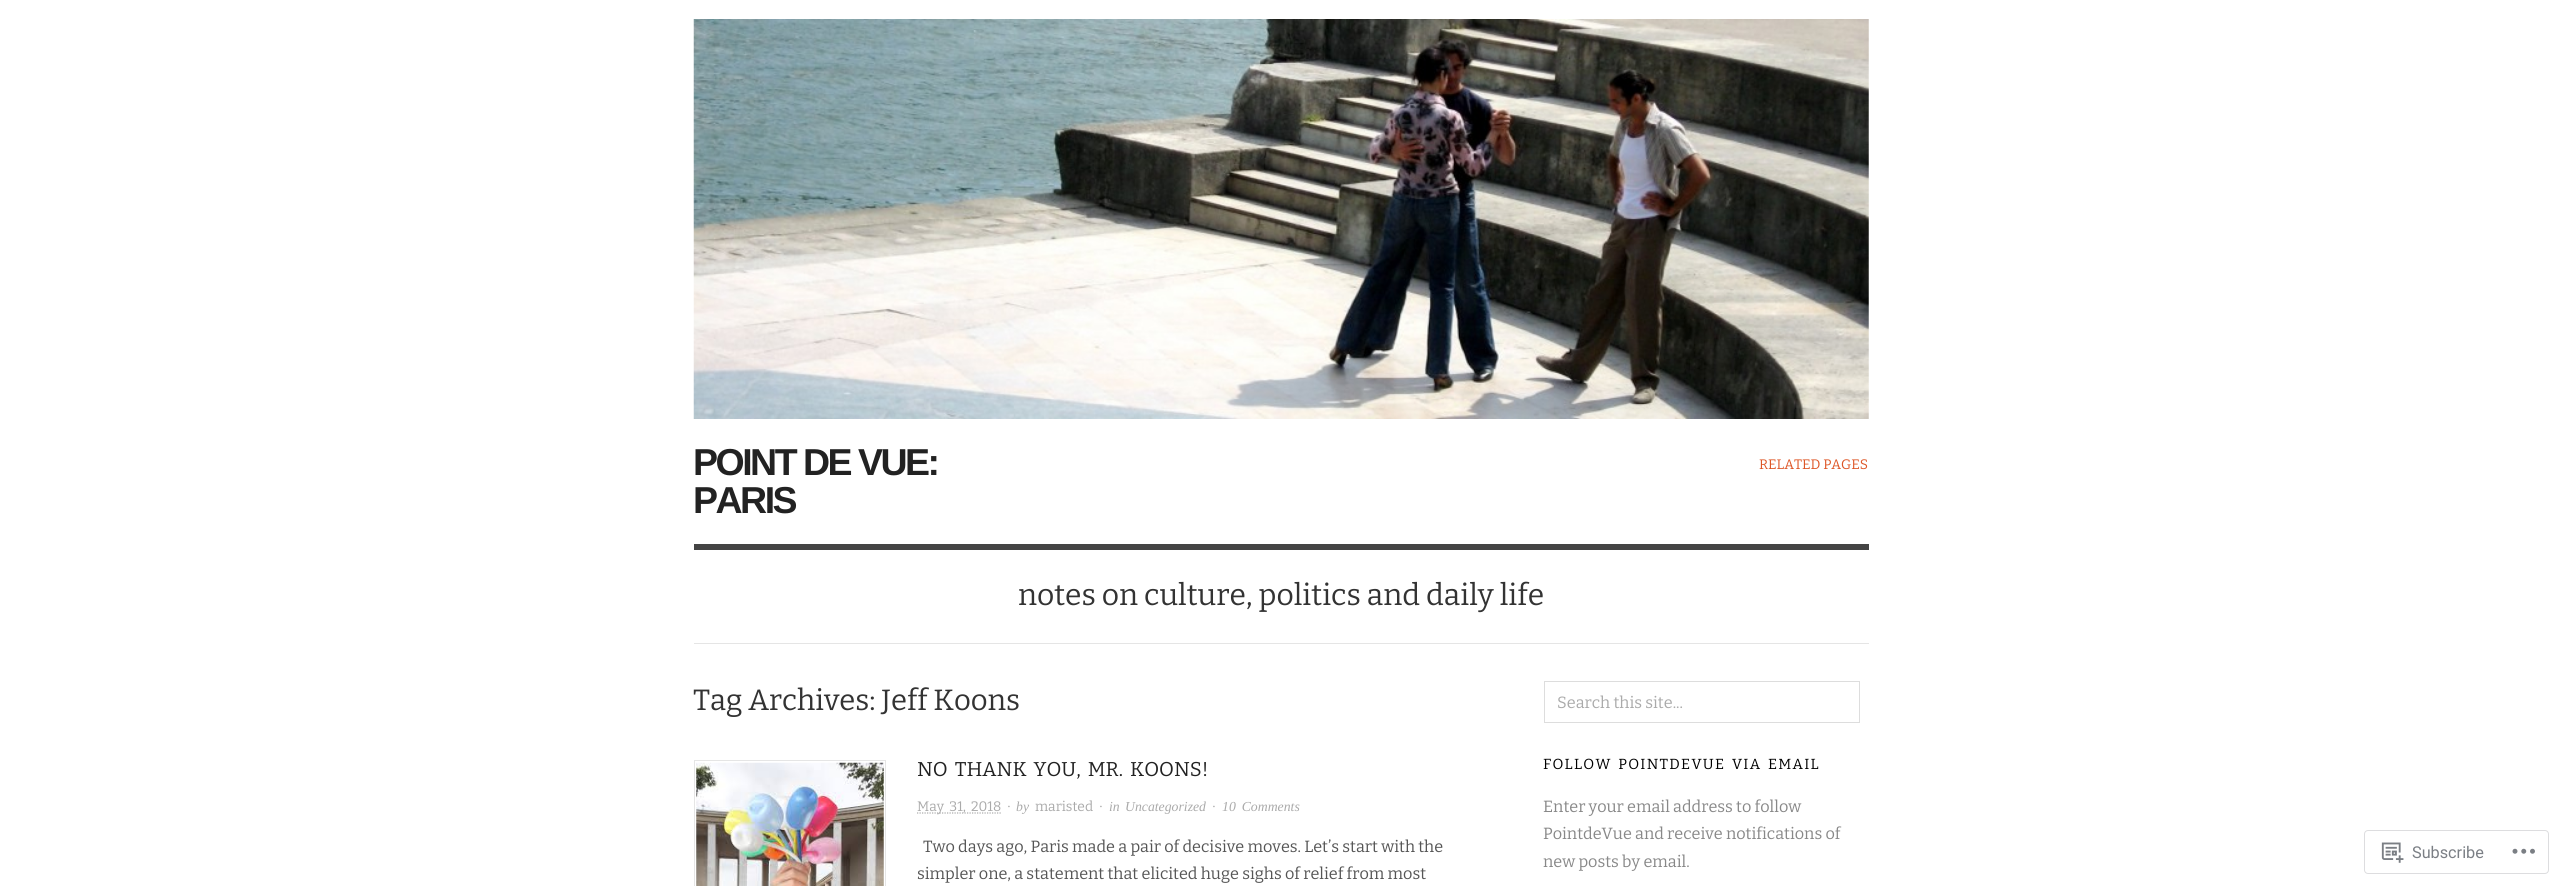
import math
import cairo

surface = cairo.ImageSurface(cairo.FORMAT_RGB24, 2561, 886)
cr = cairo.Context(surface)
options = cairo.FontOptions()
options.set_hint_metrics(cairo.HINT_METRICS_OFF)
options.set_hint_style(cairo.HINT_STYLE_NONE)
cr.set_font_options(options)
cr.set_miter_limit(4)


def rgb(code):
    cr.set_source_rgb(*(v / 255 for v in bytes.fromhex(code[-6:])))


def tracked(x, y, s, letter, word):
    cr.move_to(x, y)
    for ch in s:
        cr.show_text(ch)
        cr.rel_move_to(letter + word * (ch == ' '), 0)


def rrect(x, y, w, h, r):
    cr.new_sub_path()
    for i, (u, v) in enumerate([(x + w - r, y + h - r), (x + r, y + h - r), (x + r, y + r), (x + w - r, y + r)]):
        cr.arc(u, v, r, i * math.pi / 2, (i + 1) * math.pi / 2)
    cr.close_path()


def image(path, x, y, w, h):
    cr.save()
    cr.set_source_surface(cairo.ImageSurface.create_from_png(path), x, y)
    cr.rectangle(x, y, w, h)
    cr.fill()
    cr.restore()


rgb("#ffffff")
cr.paint()
image("img/1.png", 693, 19, 1176, 400)
rgb("#444444")
cr.rectangle(694, 544, 1175, 6)
cr.fill()
rgb("#e5e5e5")
cr.rectangle(694, 643, 1175, 1)
cr.fill()
cr.rectangle(694.5, 760.5, 191, 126)
cr.set_line_width(1)
cr.stroke()
image("img/2.png", 696, 762, 188, 124)
cr.new_path()
cr.move_to(917, 813)
cr.line_to(1001, 813)
rgb("#aaaaaa")
cr.set_line_width(1.2)
cr.set_dash([1.25, 1.25])
cr.stroke()
cr.rectangle(1544.5, 681.5, 315, 41)
rgb("#dddddd")
cr.set_line_width(1)
cr.set_dash([])
cr.stroke()
rrect(2364.5, 830.5, 184, 43, 3.5)
rgb("#dddddf")
cr.stroke()
image("img/3.png", 2381, 842, 23, 21)
image("img/4.png", 2512, 848, 23, 6)
cr.select_font_face("Liberation Sans", cairo.FONT_SLANT_NORMAL, cairo.FONT_WEIGHT_BOLD)
cr.set_font_size(37.5)
rgb("#222222")
tracked(693, 475, "POINT DE VUE:", -2.5, 0)
tracked(693, 513, "PARIS", -2.5, 0)
cr.select_font_face("Bitter Thin")
cr.set_font_size(13.75)
rgb("#dd5424")
cr.move_to(1759, 469)
cr.show_text("RELATED PAGES")
cr.set_font_size(30)
rgb("#333333")
cr.move_to(1018, 605)
cr.show_text("notes on culture, politics and daily life")
cr.set_font_size(29.25)
cr.move_to(693, 710)
cr.show_text("Tag Archives: Jeff Koons")
cr.set_font_size(20)
rgb("#222222")
tracked(917, 776, "NO THANK YOU, MR. KOONS!", 0, 3)
cr.set_font_size(13.75)
rgb("#aaaaaa")
tracked(917, 811, "May 31, 2018", 0, 2.5)
cr.select_font_face("Liberation Serif", cairo.FONT_SLANT_ITALIC)
cr.move_to(1007, 811)
cr.show_text("·")
cr.move_to(1016, 811)
cr.show_text("by")
cr.select_font_face("Bitter Thin")
cr.move_to(1035, 811)
cr.show_text("maristed")
cr.select_font_face("Liberation Serif", cairo.FONT_SLANT_ITALIC)
for x, y, s in [
    (1099, 811, "·"),
    (1109, 811, "in"),
    (1125, 811, "Uncategorized"),
    (1212, 811, "·"),
]:
    cr.move_to(x, y)
    cr.show_text(s)
tracked(1222, 811, "10 Comments", 0, 2.5)
cr.select_font_face("Bitter Thin")
cr.set_font_size(16.25)
rgb("#555555")
cr.move_to(923, 852)
cr.show_text("Two days ago, Paris made a pair of decisive moves. Let’s start with the")
cr.move_to(917, 879)
cr.show_text("simpler one, a statement that elicited huge sighs of relief from most")
rgb("#aaaaaa")
cr.move_to(1557, 708)
cr.show_text("Search this site...")
cr.set_font_size(14.6)
rgb("#000000")
tracked(1543, 769, "FOLLOW POINTDEVUE VIA EMAIL", 1.25, 2.5)
cr.set_font_size(16.25)
rgb("#888888")
for x, y, s in [
    (1543, 812, "Enter your email address to follow"),
    (1543, 839, "PointdeVue and receive notifications of"),
    (1543, 867, "new posts by email."),
]:
    cr.move_to(x, y)
    cr.show_text(s)
cr.select_font_face("Roboto")
rgb("#7b7f85")
cr.move_to(2412, 858)
cr.show_text("Subscribe")
surface.write_to_png("page.png")
